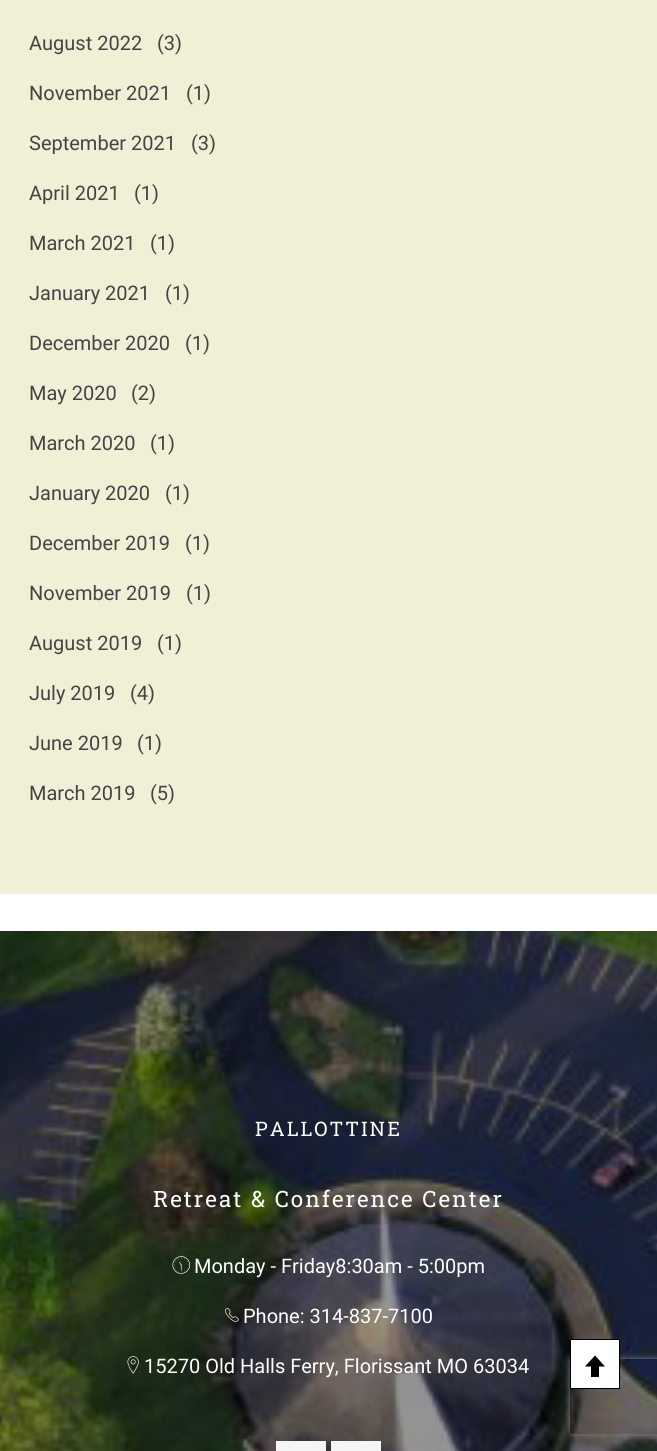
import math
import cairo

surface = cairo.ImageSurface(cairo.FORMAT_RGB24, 657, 1451)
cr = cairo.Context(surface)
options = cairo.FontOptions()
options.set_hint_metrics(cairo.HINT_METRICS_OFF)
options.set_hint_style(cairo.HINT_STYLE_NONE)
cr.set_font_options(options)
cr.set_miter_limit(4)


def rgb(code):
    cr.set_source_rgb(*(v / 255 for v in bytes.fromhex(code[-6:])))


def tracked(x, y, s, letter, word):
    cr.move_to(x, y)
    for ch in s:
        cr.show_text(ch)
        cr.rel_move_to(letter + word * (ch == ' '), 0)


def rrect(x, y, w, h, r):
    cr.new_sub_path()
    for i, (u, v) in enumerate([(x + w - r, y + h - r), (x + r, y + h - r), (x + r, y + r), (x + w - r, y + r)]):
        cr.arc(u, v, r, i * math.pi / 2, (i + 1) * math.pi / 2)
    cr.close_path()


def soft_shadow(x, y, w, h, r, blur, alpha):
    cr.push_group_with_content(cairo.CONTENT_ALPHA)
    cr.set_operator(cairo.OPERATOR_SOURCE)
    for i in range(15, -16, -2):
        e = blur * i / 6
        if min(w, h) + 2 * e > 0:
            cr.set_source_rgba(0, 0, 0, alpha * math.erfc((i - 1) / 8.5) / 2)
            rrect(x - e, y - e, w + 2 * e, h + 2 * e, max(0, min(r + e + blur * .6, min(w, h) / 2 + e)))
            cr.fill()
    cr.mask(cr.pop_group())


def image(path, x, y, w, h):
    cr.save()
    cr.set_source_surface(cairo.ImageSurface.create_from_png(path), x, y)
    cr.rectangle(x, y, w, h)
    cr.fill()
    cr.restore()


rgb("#f2efd7")
cr.paint()
rgb("#ffffff")
cr.rectangle(0, 894, 657, 37)
cr.fill()
image("img/1.png", 0, 931, 657, 520)
image("img/2.png", 172, 1256, 18, 18)
image("img/3.png", 225, 1308, 14, 14)
image("img/4.png", 127, 1356, 12, 18)
rgb("#f5f5f5")
cr.rectangle(276, 1441, 50, 10)
cr.fill()
cr.rectangle(331, 1441, 50, 10)
cr.fill()
cr.save()
cr.set_fill_rule(cairo.FILL_RULE_EVEN_ODD)
cr.new_path()
cr.move_to(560, 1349)
cr.line_to(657, 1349)
cr.line_to(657, 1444)
cr.line_to(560, 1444)
cr.close_path()
cr.move_to(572.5, 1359)
cr.line_to(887.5, 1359)
cr.curve_to(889, 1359, 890, 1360, 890, 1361.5)
cr.line_to(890, 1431.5)
cr.curve_to(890, 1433, 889, 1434, 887.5, 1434)
cr.line_to(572.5, 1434)
cr.curve_to(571, 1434, 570, 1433, 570, 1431.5)
cr.line_to(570, 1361.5)
cr.curve_to(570, 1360, 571, 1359, 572.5, 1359)
cr.close_path()
cr.clip()
rgb("#808080")
soft_shadow(570, 1359, 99, 75, 2.5, 3, 1)
cr.restore()
rgb("#ffffff")
cr.rectangle(570.5, 1339.5, 49, 49)
cr.fill_preserve()
rgb("#000000")
cr.set_line_width(1)
cr.stroke()
cr.new_path()
cr.move_to(605, 1366.5)
cr.line_to(595, 1355.5)
cr.line_to(585, 1366.5)
cr.line_to(591, 1366.5)
cr.line_to(591, 1377)
cr.line_to(599, 1377)
cr.line_to(599, 1366.5)
cr.close_path()
cr.fill()
cr.select_font_face("Roboto")
cr.set_font_size(20)
rgb("#444444")
for x, y, s in [
    (29, 50, "August 2022"),
    (157, 50, "(3)"),
    (29, 100, "November 2021"),
    (186, 100, "(1)"),
    (29, 150, "September 2021"),
    (191, 150, "(3)"),
    (29, 200, "April 2021"),
    (134, 200, "(1)"),
    (29, 250, "March 2021"),
    (150, 250, "(1)"),
    (29, 300, "January 2021"),
    (165, 300, "(1)"),
    (29, 350, "December 2020"),
    (185, 350, "(1)"),
    (29, 400, "May 2020"),
    (131, 400, "(2)"),
    (29, 450, "March 2020"),
    (150, 450, "(1)"),
    (29, 500, "January 2020"),
    (165, 500, "(1)"),
    (29, 550, "December 2019"),
    (185, 550, "(1)"),
    (29, 600, "November 2019"),
    (186, 600, "(1)"),
    (29, 650, "August 2019"),
    (157, 650, "(1)"),
    (29, 700, "July 2019"),
    (130, 700, "(4)"),
    (29, 750, "June 2019"),
    (137, 750, "(1)"),
    (29, 800, "March 2019"),
    (150, 800, "(5)"),
]:
    cr.move_to(x, y)
    cr.show_text(s)
cr.select_font_face("Roboto Slab")
rgb("#ffffff")
tracked(255, 1136, "PALLOTTINE", 2, 0)
cr.set_font_size(22.5)
tracked(153, 1207, "Retreat & Conference Center", 2, 0)
cr.select_font_face("Roboto")
cr.set_font_size(20)
for x, y, s in [
    (194, 1273, "Monday - Friday8:30am - 5:00pm"),
    (243, 1323, "Phone: 314-837-7100"),
    (144, 1373, "15270 Old Halls Ferry, Florissant MO 63034"),
]:
    cr.move_to(x, y)
    cr.show_text(s)
surface.write_to_png("page.png")
